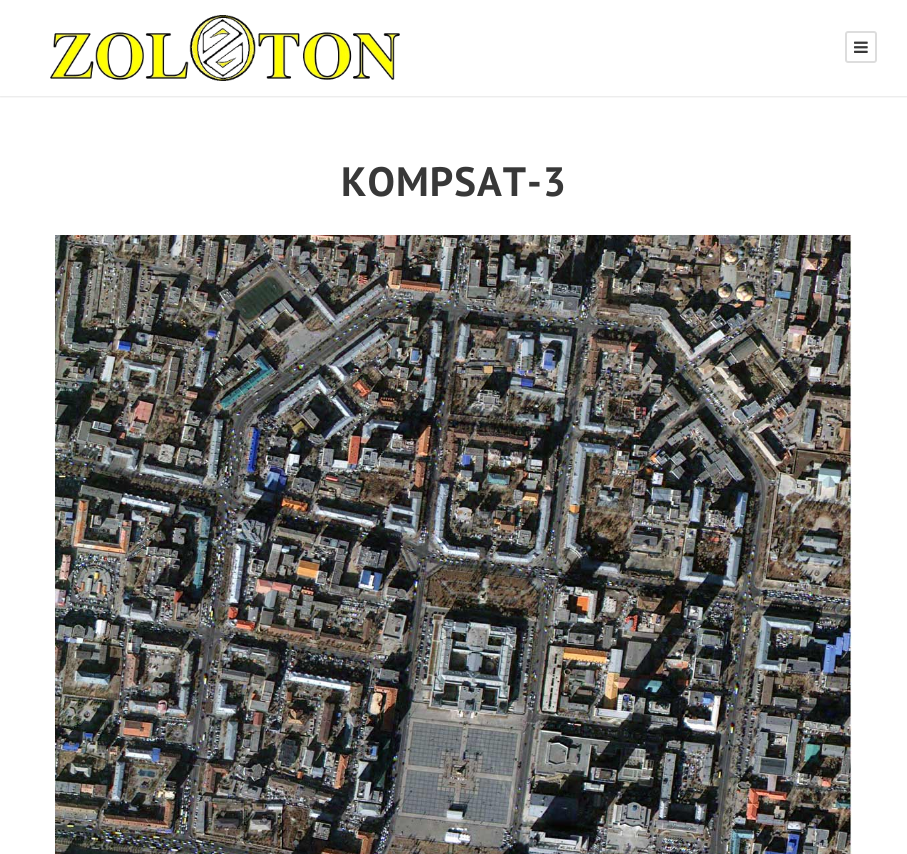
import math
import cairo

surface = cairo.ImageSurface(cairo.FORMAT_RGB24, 907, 854)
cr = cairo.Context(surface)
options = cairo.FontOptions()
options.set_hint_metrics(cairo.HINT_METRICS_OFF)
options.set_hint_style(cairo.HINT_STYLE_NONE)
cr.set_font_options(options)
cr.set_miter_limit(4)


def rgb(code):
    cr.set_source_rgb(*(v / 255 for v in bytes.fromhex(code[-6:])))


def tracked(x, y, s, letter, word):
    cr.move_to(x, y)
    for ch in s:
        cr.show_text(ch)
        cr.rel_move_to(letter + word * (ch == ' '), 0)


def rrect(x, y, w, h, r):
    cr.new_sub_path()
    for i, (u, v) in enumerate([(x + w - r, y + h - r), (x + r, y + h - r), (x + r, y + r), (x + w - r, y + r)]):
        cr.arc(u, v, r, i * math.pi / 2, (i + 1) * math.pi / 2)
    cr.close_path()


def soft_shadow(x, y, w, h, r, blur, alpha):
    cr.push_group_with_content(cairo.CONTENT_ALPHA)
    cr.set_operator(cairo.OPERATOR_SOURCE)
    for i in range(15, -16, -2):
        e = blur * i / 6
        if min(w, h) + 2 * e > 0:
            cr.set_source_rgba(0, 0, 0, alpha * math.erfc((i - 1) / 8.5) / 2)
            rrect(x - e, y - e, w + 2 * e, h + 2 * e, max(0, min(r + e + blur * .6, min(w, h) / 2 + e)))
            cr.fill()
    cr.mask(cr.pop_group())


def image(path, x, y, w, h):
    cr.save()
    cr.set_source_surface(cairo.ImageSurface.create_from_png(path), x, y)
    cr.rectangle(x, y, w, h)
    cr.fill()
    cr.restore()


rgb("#ffffff")
cr.paint()
cr.save()
cr.rectangle(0, 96, 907, 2)
cr.clip()
rgb("#000000")
soft_shadow(0, 1, 907, 96, 0, 1, 0.1)
cr.restore()
image("img/1.png", 50, 15, 350, 66)
rrect(846, 32, 30, 30, 2)
rgb("#dddddd")
cr.stroke()
image("img/2.png", 854, 41, 14, 12)
image("img/3.png", 55, 235, 797, 619)
cr.select_font_face("PT Sans", cairo.FONT_SLANT_NORMAL, cairo.FONT_WEIGHT_BOLD)
cr.set_font_size(41)
rgb("#383838")
tracked(341, 196, "KOMPSAT-3", 1, 0)
surface.write_to_png("page.png")
